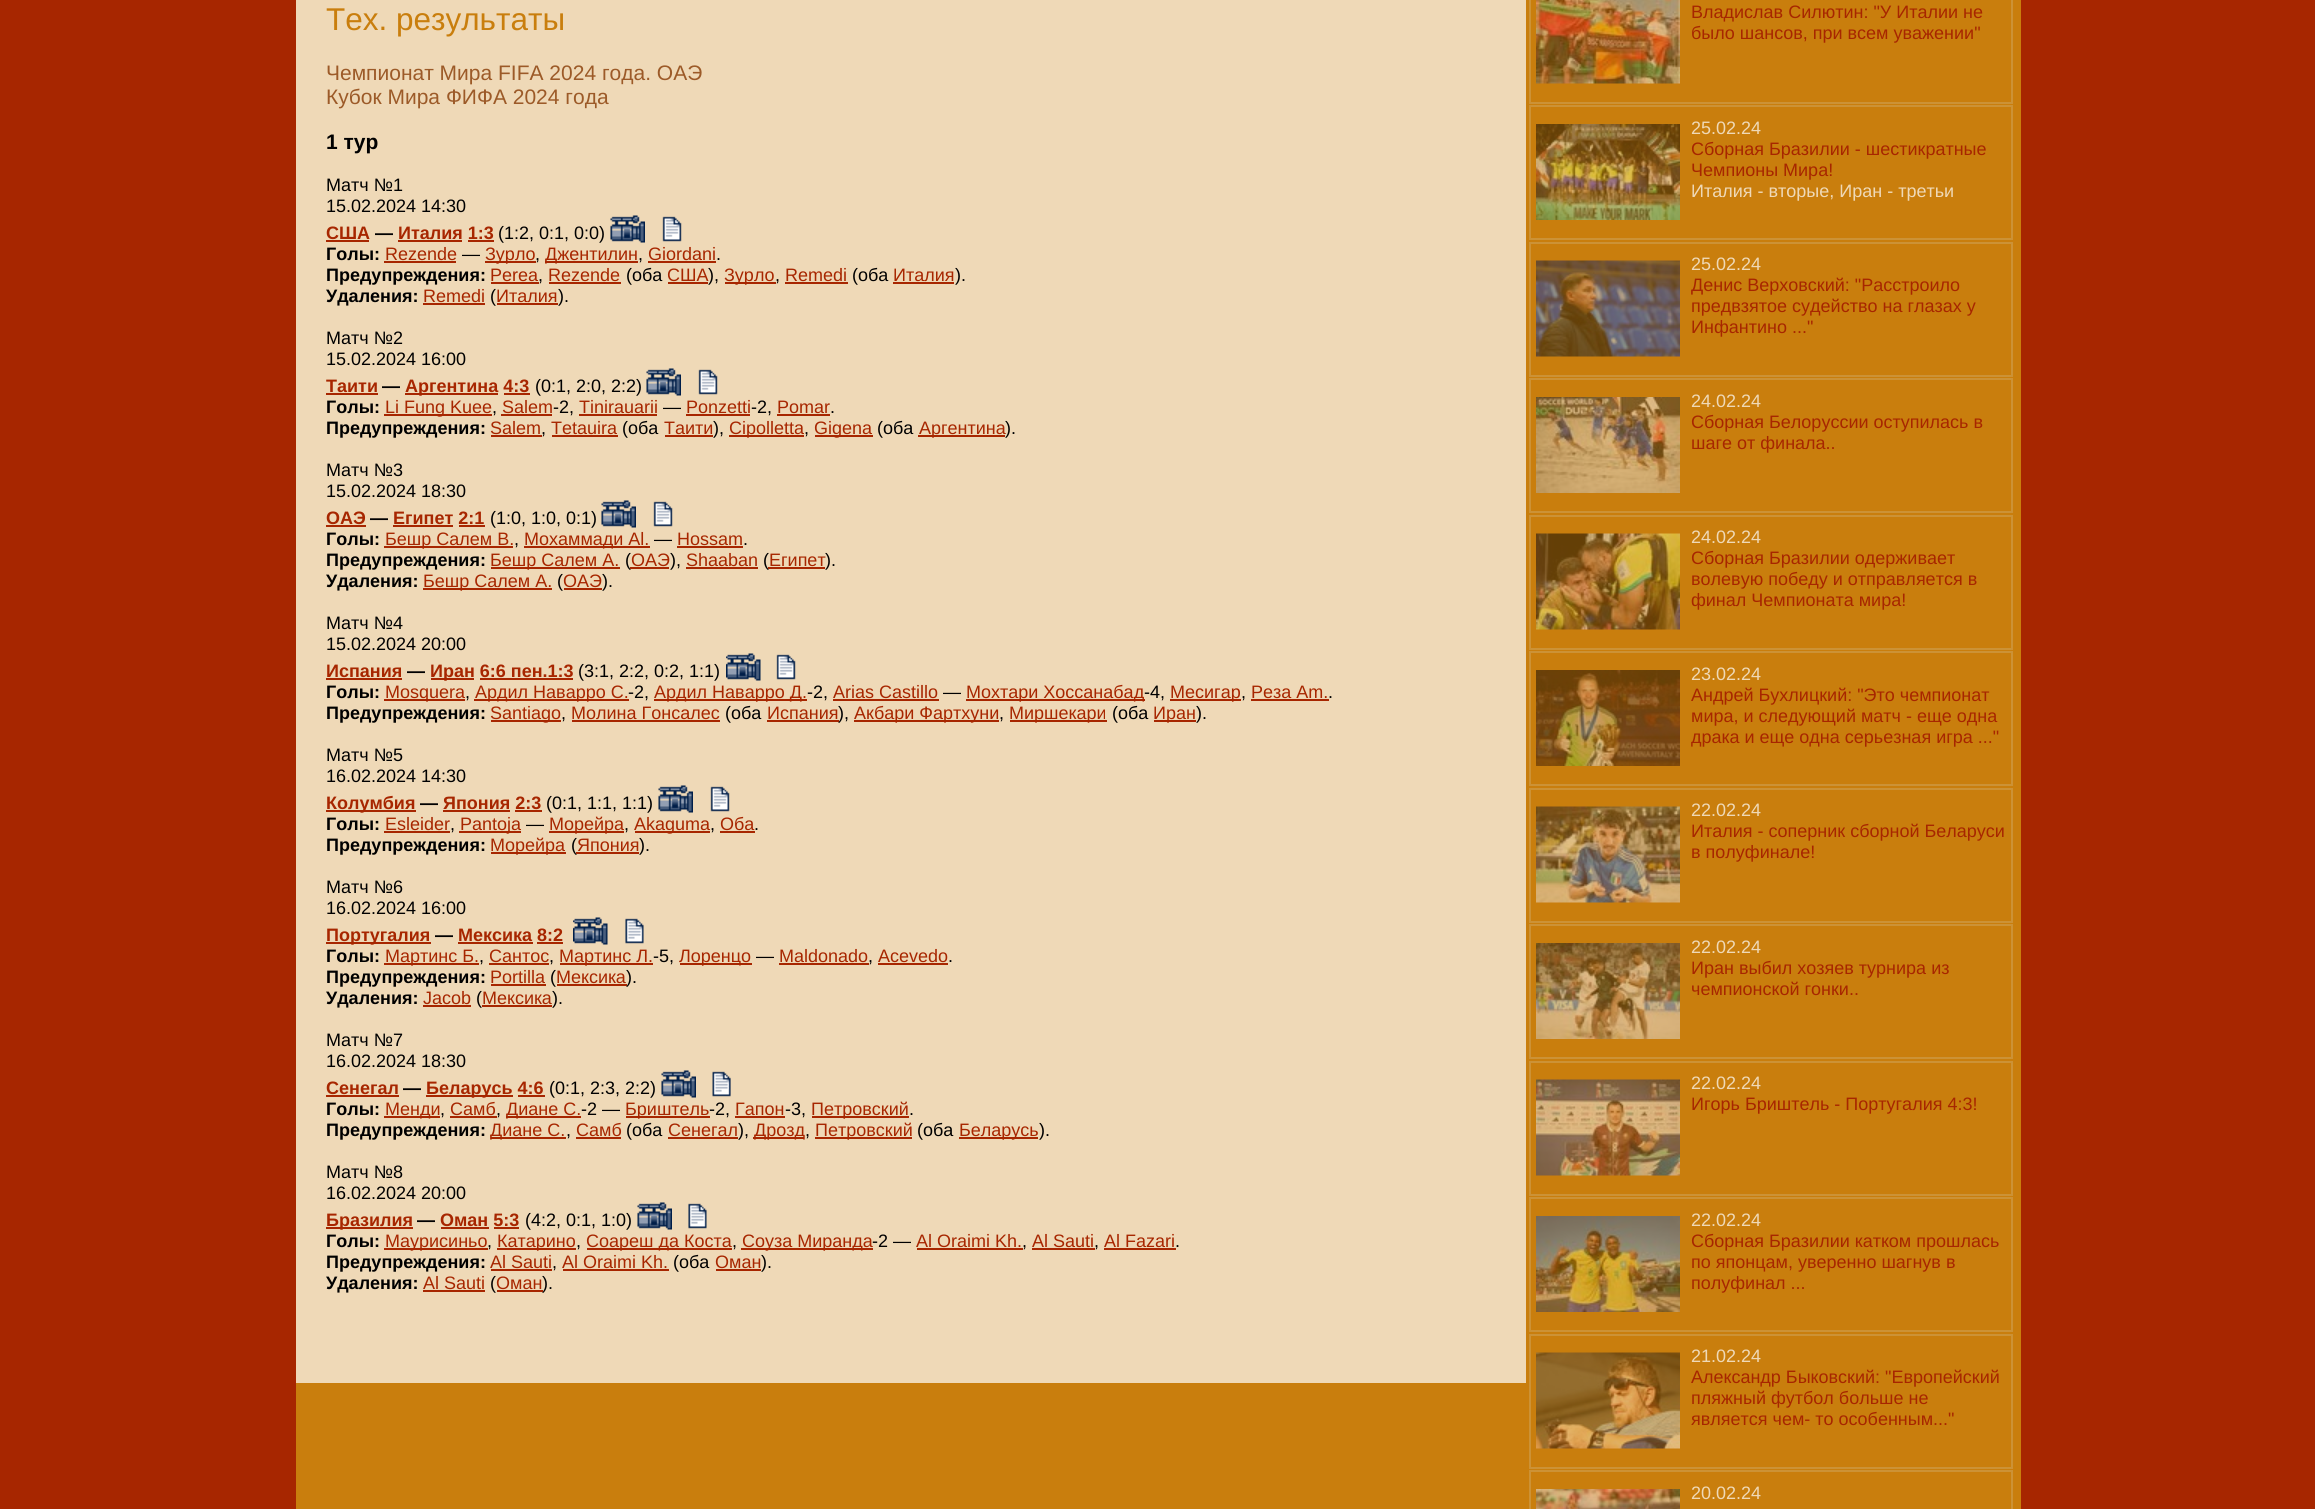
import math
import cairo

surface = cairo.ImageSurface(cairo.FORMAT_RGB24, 2315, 1509)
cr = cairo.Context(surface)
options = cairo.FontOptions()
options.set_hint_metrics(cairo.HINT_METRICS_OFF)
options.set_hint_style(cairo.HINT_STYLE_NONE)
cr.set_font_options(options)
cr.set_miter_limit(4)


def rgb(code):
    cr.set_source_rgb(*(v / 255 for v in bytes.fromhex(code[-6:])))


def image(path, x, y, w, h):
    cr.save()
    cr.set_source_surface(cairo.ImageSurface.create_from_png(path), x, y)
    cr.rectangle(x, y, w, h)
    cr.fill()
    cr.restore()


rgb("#a72600")
cr.paint()
for x, y, w, h, color in [
    (296, 0, 1725, 1509, "#c97e0d"),
    (296, 0, 1230, 1383, "#efd9b7"),
    (326, 240, 43, 2, "#a72600"),
    (398, 240, 64, 2, "#a72600"),
    (468, 240, 26, 2, "#a72600"),
]:
    rgb(color)
    cr.rectangle(x, y, w, h)
    cr.fill()
image("img/1.png", 610, 215, 35, 28)
image("img/2.png", 662, 216, 20, 26)
for x, y, w, h, color in [
    (384, 261, 72, 2, "#a72600"),
    (485, 261, 51, 2, "#a72600"),
    (545, 261, 93, 2, "#a72600"),
    (648, 261, 68, 2, "#a72600"),
    (491, 282, 48, 2, "#a72600"),
    (549, 282, 72, 2, "#a72600"),
    (668, 282, 40, 2, "#a72600"),
    (725, 282, 51, 2, "#a72600"),
    (785, 282, 63, 2, "#a72600"),
    (893, 282, 61, 2, "#a72600"),
    (423, 303, 62, 2, "#a72600"),
    (497, 303, 61, 2, "#a72600"),
    (326, 393, 52, 2, "#a72600"),
    (405, 393, 93, 2, "#a72600"),
    (504, 393, 26, 2, "#a72600"),
]:
    rgb(color)
    cr.rectangle(x, y, w, h)
    cr.fill()
image("img/1.png", 646, 368, 35, 28)
image("img/2.png", 698, 369, 20, 26)
for x, y, w, h, color in [
    (384, 414, 108, 2, "#a72600"),
    (501, 414, 51, 2, "#a72600"),
    (579, 414, 78, 2, "#a72600"),
    (686, 414, 64, 2, "#a72600"),
    (777, 414, 53, 2, "#a72600"),
    (491, 435, 51, 2, "#a72600"),
    (552, 435, 66, 2, "#a72600"),
    (665, 435, 48, 2, "#a72600"),
    (729, 435, 75, 2, "#a72600"),
    (815, 435, 58, 2, "#a72600"),
    (918, 435, 87, 2, "#a72600"),
    (326, 525, 40, 2, "#a72600"),
    (393, 525, 60, 2, "#a72600"),
    (459, 525, 26, 2, "#a72600"),
]:
    rgb(color)
    cr.rectangle(x, y, w, h)
    cr.fill()
image("img/1.png", 601, 500, 35, 28)
image("img/2.png", 653, 501, 20, 26)
for x, y, w, h, color in [
    (384, 546, 129, 2, "#a72600"),
    (524, 546, 126, 2, "#a72600"),
    (677, 546, 66, 2, "#a72600"),
    (491, 567, 129, 2, "#a72600"),
    (686, 567, 72, 2, "#a72600"),
    (423, 588, 129, 2, "#a72600"),
    (564, 588, 38, 2, "#a72600"),
    (326, 678, 76, 2, "#a72600"),
    (431, 678, 43, 2, "#a72600"),
    (480, 678, 93, 2, "#a72600"),
]:
    rgb(color)
    cr.rectangle(x, y, w, h)
    cr.fill()
image("img/3.png", 726, 653, 35, 28)
image("img/4.png", 776, 654, 20, 26)
for x, y, w, h, color in [
    (384, 699, 81, 2, "#a72600"),
    (474, 699, 155, 2, "#a72600"),
    (654, 699, 153, 2, "#a72600"),
    (833, 699, 106, 2, "#a72600"),
    (966, 699, 179, 2, "#a72600"),
    (1170, 699, 71, 2, "#a72600"),
    (1251, 699, 78, 2, "#a72600"),
    (491, 720, 70, 2, "#a72600"),
    (572, 720, 148, 2, "#a72600"),
    (767, 720, 72, 2, "#a72600"),
    (854, 720, 145, 2, "#a72600"),
    (1010, 720, 97, 2, "#a72600"),
    (1154, 720, 42, 2, "#a72600"),
    (326, 810, 90, 2, "#a72600"),
    (443, 810, 67, 2, "#a72600"),
    (515, 810, 27, 2, "#a72600"),
]:
    rgb(color)
    cr.rectangle(x, y, w, h)
    cr.fill()
image("img/1.png", 658, 785, 35, 28)
image("img/2.png", 710, 786, 20, 26)
for x, y, w, h, color in [
    (384, 831, 66, 2, "#a72600"),
    (459, 831, 62, 2, "#a72600"),
    (549, 831, 75, 2, "#a72600"),
    (635, 831, 75, 2, "#a72600"),
    (720, 831, 35, 2, "#a72600"),
    (491, 852, 75, 2, "#a72600"),
    (326, 942, 105, 2, "#a72600"),
    (458, 942, 75, 2, "#a72600"),
    (537, 942, 26, 2, "#a72600"),
]:
    rgb(color)
    cr.rectangle(x, y, w, h)
    cr.fill()
image("img/3.png", 573, 917, 35, 28)
image("img/5.png", 625, 918, 19, 26)
for x, y, w, h, color in [
    (384, 963, 95, 2, "#a72600"),
    (489, 963, 60, 2, "#a72600"),
    (560, 963, 93, 2, "#a72600"),
    (680, 963, 72, 2, "#a72600"),
    (779, 963, 90, 2, "#a72600"),
    (878, 963, 70, 2, "#a72600"),
    (491, 984, 55, 2, "#a72600"),
    (557, 984, 70, 2, "#a72600"),
    (423, 1005, 48, 2, "#a72600"),
    (482, 1005, 70, 2, "#a72600"),
    (326, 1095, 73, 2, "#a72600"),
    (426, 1095, 87, 2, "#a72600"),
    (518, 1095, 27, 2, "#a72600"),
]:
    rgb(color)
    cr.rectangle(x, y, w, h)
    cr.fill()
image("img/1.png", 661, 1070, 35, 28)
image("img/6.png", 712, 1071, 19, 26)
for x, y, w, h, color in [
    (384, 1116, 56, 2, "#a72600"),
    (450, 1116, 47, 2, "#a72600"),
    (506, 1116, 75, 2, "#a72600"),
    (626, 1116, 84, 2, "#a72600"),
    (735, 1116, 50, 2, "#a72600"),
    (812, 1116, 97, 2, "#a72600"),
    (491, 1137, 75, 2, "#a72600"),
    (576, 1137, 45, 2, "#a72600"),
    (668, 1137, 70, 2, "#a72600"),
    (753, 1137, 51, 2, "#a72600"),
    (815, 1137, 97, 2, "#a72600"),
    (959, 1137, 79, 2, "#a72600"),
    (326, 1227, 87, 2, "#a72600"),
    (441, 1227, 48, 2, "#a72600"),
    (494, 1227, 25, 2, "#a72600"),
]:
    rgb(color)
    cr.rectangle(x, y, w, h)
    cr.fill()
image("img/1.png", 637, 1202, 35, 28)
image("img/5.png", 688, 1203, 19, 26)
for x, y, w, h, color in [
    (384, 1248, 104, 2, "#a72600"),
    (497, 1248, 79, 2, "#a72600"),
    (587, 1248, 145, 2, "#a72600"),
    (741, 1248, 132, 2, "#a72600"),
    (917, 1248, 106, 2, "#a72600"),
    (1032, 1248, 63, 2, "#a72600"),
    (1104, 1248, 72, 2, "#a72600"),
    (491, 1269, 61, 2, "#a72600"),
    (563, 1269, 106, 2, "#a72600"),
    (716, 1269, 45, 2, "#a72600"),
    (423, 1290, 62, 2, "#a72600"),
    (497, 1290, 46, 2, "#a72600"),
]:
    rgb(color)
    cr.rectangle(x, y, w, h)
    cr.fill()
cr.rectangle(1530, -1, 482, 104)
rgb("#cc9236")
cr.stroke()
image("img/7.png", 1536, 0, 144, 84)
cr.rectangle(1530, 106, 482, 133)
cr.stroke()
image("img/8.png", 1536, 124, 144, 96)
cr.rectangle(1530, 243, 482, 133)
cr.stroke()
image("img/9.png", 1536, 260, 144, 97)
cr.rectangle(1530, 379, 482, 133)
cr.stroke()
image("img/10.png", 1536, 397, 144, 96)
cr.rectangle(1530, 516, 482, 133)
cr.stroke()
image("img/11.png", 1536, 533, 144, 97)
cr.rectangle(1530, 652, 482, 133)
cr.stroke()
image("img/12.png", 1536, 670, 144, 96)
cr.rectangle(1530, 789, 482, 133)
cr.stroke()
image("img/13.png", 1536, 806, 144, 97)
cr.rectangle(1530, 925, 482, 133)
cr.stroke()
image("img/14.png", 1536, 943, 144, 96)
cr.rectangle(1530, 1062, 482, 133)
cr.stroke()
image("img/15.png", 1536, 1079, 144, 97)
cr.rectangle(1530, 1198, 482, 133)
cr.stroke()
image("img/16.png", 1536, 1216, 144, 96)
cr.rectangle(1530, 1335, 482, 133)
cr.stroke()
image("img/17.png", 1536, 1352, 144, 97)
cr.rectangle(1530, 1471, 482, 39)
cr.stroke()
image("img/18.png", 1536, 1489, 144, 20)
cr.select_font_face("Liberation Sans")
cr.set_font_size(31.5)
rgb("#c97e0d")
cr.move_to(326, 30)
cr.show_text("Тех. результаты")
cr.set_font_size(21)
rgb("#9c5a28")
cr.move_to(326, 80)
cr.show_text("Чемпионат Мира FIFA 2024 года. ОАЭ")
cr.move_to(326, 104)
cr.show_text("Кубок Мира ФИФА 2024 года")
cr.select_font_face("Liberation Sans", cairo.FONT_SLANT_NORMAL, cairo.FONT_WEIGHT_BOLD)
rgb("#000000")
cr.move_to(326, 149)
cr.show_text("1 тур")
cr.select_font_face("Liberation Sans")
cr.set_font_size(18)
cr.move_to(326, 191)
cr.show_text("Матч №1")
cr.move_to(326, 212)
cr.show_text("15.02.2024 14:30")
cr.select_font_face("Liberation Sans", cairo.FONT_SLANT_NORMAL, cairo.FONT_WEIGHT_BOLD)
rgb("#a72600")
cr.move_to(326, 239)
cr.show_text("США")
rgb("#000000")
cr.move_to(375, 239)
cr.show_text("—")
rgb("#a72600")
cr.move_to(398, 239)
cr.show_text("Италия 1:3")
cr.select_font_face("Liberation Sans")
rgb("#000000")
cr.move_to(498, 239)
cr.show_text("(1:2, 0:1, 0:0)")
cr.select_font_face("Liberation Sans", cairo.FONT_SLANT_NORMAL, cairo.FONT_WEIGHT_BOLD)
cr.move_to(326, 260)
cr.show_text("Голы:")
cr.select_font_face("Liberation Sans")
rgb("#a72600")
cr.move_to(385, 260)
cr.show_text("Rezende")
rgb("#000000")
cr.move_to(462, 260)
cr.show_text("—")
rgb("#a72600")
for x, y, s in [
    (485, 260, "Зурло"),
    (545, 260, "Джентилин"),
    (648, 260, "Giordani"),
]:
    cr.move_to(x, y)
    cr.show_text(s)
rgb("#000000")
for x, y, s in [
    (535, 260, ","),
    (638, 260, ","),
    (716, 260, "."),
]:
    cr.move_to(x, y)
    cr.show_text(s)
cr.select_font_face("Liberation Sans", cairo.FONT_SLANT_NORMAL, cairo.FONT_WEIGHT_BOLD)
cr.move_to(326, 281)
cr.show_text("Предупреждения:")
cr.select_font_face("Liberation Sans")
rgb("#a72600")
cr.move_to(490, 281)
cr.show_text("Perea")
rgb("#000000")
cr.move_to(538, 281)
cr.show_text(",")
rgb("#a72600")
cr.move_to(548, 281)
cr.show_text("Rezende")
rgb("#000000")
cr.move_to(626, 281)
cr.show_text("(оба")
rgb("#a72600")
cr.move_to(667, 281)
cr.show_text("США")
rgb("#000000")
cr.move_to(708, 281)
cr.show_text("),")
rgb("#a72600")
cr.move_to(724, 281)
cr.show_text("Зурло")
rgb("#000000")
cr.move_to(775, 281)
cr.show_text(",")
rgb("#a72600")
cr.move_to(785, 281)
cr.show_text("Remedi")
rgb("#000000")
cr.move_to(852, 281)
cr.show_text("(оба")
rgb("#a72600")
cr.move_to(893, 281)
cr.show_text("Италия")
rgb("#000000")
cr.move_to(955, 281)
cr.show_text(").")
cr.select_font_face("Liberation Sans", cairo.FONT_SLANT_NORMAL, cairo.FONT_WEIGHT_BOLD)
cr.move_to(326, 302)
cr.show_text("Удаления:")
cr.select_font_face("Liberation Sans")
rgb("#a72600")
cr.move_to(423, 302)
cr.show_text("Remedi")
rgb("#000000")
cr.move_to(490, 302)
cr.show_text("(")
rgb("#a72600")
cr.move_to(496, 302)
cr.show_text("Италия")
rgb("#000000")
for x, y, s in [
    (558, 302, ")."),
    (326, 344, "Матч №2"),
    (326, 365, "15.02.2024 16:00"),
]:
    cr.move_to(x, y)
    cr.show_text(s)
cr.select_font_face("Liberation Sans", cairo.FONT_SLANT_NORMAL, cairo.FONT_WEIGHT_BOLD)
rgb("#a72600")
cr.move_to(326, 392)
cr.show_text("Таити")
rgb("#000000")
cr.move_to(382, 392)
cr.show_text("—")
rgb("#a72600")
cr.move_to(405, 392)
cr.show_text("Аргентина 4:3")
cr.select_font_face("Liberation Sans")
rgb("#000000")
cr.move_to(535, 392)
cr.show_text("(0:1, 2:0, 2:2)")
cr.select_font_face("Liberation Sans", cairo.FONT_SLANT_NORMAL, cairo.FONT_WEIGHT_BOLD)
cr.move_to(326, 413)
cr.show_text("Голы:")
cr.select_font_face("Liberation Sans")
rgb("#a72600")
cr.move_to(385, 413)
cr.show_text("Li Fung Kuee")
cr.move_to(502, 413)
cr.show_text("Salem")
rgb("#000000")
cr.move_to(553, 413)
cr.show_text("-2,")
rgb("#a72600")
cr.move_to(579, 413)
cr.show_text("Tinirauarii")
rgb("#000000")
cr.move_to(663, 413)
cr.show_text("—")
rgb("#a72600")
cr.move_to(686, 413)
cr.show_text("Ponzetti")
rgb("#000000")
cr.move_to(751, 413)
cr.show_text("-2,")
rgb("#a72600")
cr.move_to(777, 413)
cr.show_text("Pomar")
rgb("#000000")
cr.move_to(492, 413)
cr.show_text(",")
cr.move_to(830, 413)
cr.show_text(".")
cr.select_font_face("Liberation Sans", cairo.FONT_SLANT_NORMAL, cairo.FONT_WEIGHT_BOLD)
cr.move_to(326, 434)
cr.show_text("Предупреждения:")
cr.select_font_face("Liberation Sans")
rgb("#a72600")
cr.move_to(490, 434)
cr.show_text("Salem")
rgb("#000000")
cr.move_to(541, 434)
cr.show_text(",")
rgb("#a72600")
cr.move_to(551, 434)
cr.show_text("Tetauira")
rgb("#000000")
cr.move_to(622, 434)
cr.show_text("(оба")
rgb("#a72600")
cr.move_to(664, 434)
cr.show_text("Таити")
rgb("#000000")
cr.move_to(713, 434)
cr.show_text("),")
rgb("#a72600")
cr.move_to(729, 434)
cr.show_text("Cipolletta")
rgb("#000000")
cr.move_to(804, 434)
cr.show_text(",")
rgb("#a72600")
cr.move_to(814, 434)
cr.show_text("Gigena")
rgb("#000000")
cr.move_to(877, 434)
cr.show_text("(оба")
rgb("#a72600")
cr.move_to(919, 434)
cr.show_text("Аргентина")
rgb("#000000")
for x, y, s in [
    (1005, 434, ")."),
    (326, 476, "Матч №3"),
    (326, 497, "15.02.2024 18:30"),
]:
    cr.move_to(x, y)
    cr.show_text(s)
cr.select_font_face("Liberation Sans", cairo.FONT_SLANT_NORMAL, cairo.FONT_WEIGHT_BOLD)
rgb("#a72600")
cr.move_to(326, 524)
cr.show_text("ОАЭ")
rgb("#000000")
cr.move_to(370, 524)
cr.show_text("—")
rgb("#a72600")
cr.move_to(393, 524)
cr.show_text("Египет 2:1")
cr.select_font_face("Liberation Sans")
rgb("#000000")
cr.move_to(490, 524)
cr.show_text("(1:0, 1:0, 0:1)")
cr.select_font_face("Liberation Sans", cairo.FONT_SLANT_NORMAL, cairo.FONT_WEIGHT_BOLD)
cr.move_to(326, 545)
cr.show_text("Голы:")
cr.select_font_face("Liberation Sans")
rgb("#a72600")
cr.move_to(385, 545)
cr.show_text("Бешр Салем В.")
cr.move_to(524, 545)
cr.show_text("Мохаммади Al.")
rgb("#000000")
cr.move_to(654, 545)
cr.show_text("—")
rgb("#a72600")
cr.move_to(677, 545)
cr.show_text("Hossam")
rgb("#000000")
cr.move_to(514, 545)
cr.show_text(",")
cr.move_to(743, 545)
cr.show_text(".")
cr.select_font_face("Liberation Sans", cairo.FONT_SLANT_NORMAL, cairo.FONT_WEIGHT_BOLD)
cr.move_to(326, 566)
cr.show_text("Предупреждения:")
cr.select_font_face("Liberation Sans")
rgb("#a72600")
cr.move_to(490, 566)
cr.show_text("Бешр Салем А.")
rgb("#000000")
cr.move_to(625, 566)
cr.show_text("(")
rgb("#a72600")
cr.move_to(631, 566)
cr.show_text("ОАЭ")
cr.rectangle(630, 567, 39, 2)
cr.fill()
rgb("#000000")
cr.move_to(670, 566)
cr.show_text("),")
rgb("#a72600")
cr.move_to(686, 566)
cr.show_text("Shaaban")
rgb("#000000")
cr.move_to(763, 566)
cr.show_text("(")
rgb("#a72600")
cr.move_to(769, 566)
cr.show_text("Египет")
cr.rectangle(768, 567, 57, 2)
cr.fill()
rgb("#000000")
cr.move_to(825, 566)
cr.show_text(").")
cr.select_font_face("Liberation Sans", cairo.FONT_SLANT_NORMAL, cairo.FONT_WEIGHT_BOLD)
cr.move_to(326, 587)
cr.show_text("Удаления:")
cr.select_font_face("Liberation Sans")
rgb("#a72600")
cr.move_to(423, 587)
cr.show_text("Бешр Салем А.")
rgb("#000000")
cr.move_to(557, 587)
cr.show_text("(")
rgb("#a72600")
cr.move_to(563, 587)
cr.show_text("ОАЭ")
rgb("#000000")
for x, y, s in [
    (602, 587, ")."),
    (326, 629, "Матч №4"),
    (326, 650, "15.02.2024 20:00"),
]:
    cr.move_to(x, y)
    cr.show_text(s)
cr.select_font_face("Liberation Sans", cairo.FONT_SLANT_NORMAL, cairo.FONT_WEIGHT_BOLD)
rgb("#a72600")
cr.move_to(326, 677)
cr.show_text("Испания")
rgb("#000000")
cr.move_to(407, 677)
cr.show_text("—")
rgb("#a72600")
cr.move_to(430, 677)
cr.show_text("Иран 6:6 пен.1:3")
cr.select_font_face("Liberation Sans")
rgb("#000000")
cr.move_to(578, 677)
cr.show_text("(3:1, 2:2, 0:2, 1:1)")
cr.select_font_face("Liberation Sans", cairo.FONT_SLANT_NORMAL, cairo.FONT_WEIGHT_BOLD)
cr.move_to(326, 698)
cr.show_text("Голы:")
cr.select_font_face("Liberation Sans")
rgb("#a72600")
cr.move_to(385, 698)
cr.show_text("Mosquera")
cr.move_to(475, 698)
cr.show_text("Ардил Наварро С.")
rgb("#000000")
cr.move_to(628, 698)
cr.show_text("-2,")
rgb("#a72600")
cr.move_to(654, 698)
cr.show_text("Ардил Наварро Д.")
rgb("#000000")
cr.move_to(807, 698)
cr.show_text("-2,")
rgb("#a72600")
cr.move_to(833, 698)
cr.show_text("Arias Castillo")
rgb("#000000")
cr.move_to(943, 698)
cr.show_text("—")
rgb("#a72600")
cr.move_to(966, 698)
cr.show_text("Мохтари Хоссанабад")
rgb("#000000")
cr.move_to(1144, 698)
cr.show_text("-4,")
rgb("#a72600")
cr.move_to(1170, 698)
cr.show_text("Месигар")
cr.move_to(1251, 698)
cr.show_text("Реза Am.")
rgb("#000000")
for x, y, s in [
    (465, 698, ","),
    (1241, 698, ","),
    (1328, 698, "."),
]:
    cr.move_to(x, y)
    cr.show_text(s)
cr.select_font_face("Liberation Sans", cairo.FONT_SLANT_NORMAL, cairo.FONT_WEIGHT_BOLD)
cr.move_to(326, 719)
cr.show_text("Предупреждения:")
cr.select_font_face("Liberation Sans")
rgb("#a72600")
cr.move_to(490, 719)
cr.show_text("Santiago")
rgb("#000000")
cr.move_to(561, 719)
cr.show_text(",")
rgb("#a72600")
cr.move_to(571, 719)
cr.show_text("Молина Гонсалес")
rgb("#000000")
cr.move_to(725, 719)
cr.show_text("(оба")
rgb("#a72600")
cr.move_to(767, 719)
cr.show_text("Испания")
rgb("#000000")
cr.move_to(838, 719)
cr.show_text("),")
rgb("#a72600")
cr.move_to(854, 719)
cr.show_text("Акбари Фартхуни")
rgb("#000000")
cr.move_to(999, 719)
cr.show_text(",")
rgb("#a72600")
cr.move_to(1009, 719)
cr.show_text("Миршекари")
rgb("#000000")
cr.move_to(1112, 719)
cr.show_text("(оба")
rgb("#a72600")
cr.move_to(1153, 719)
cr.show_text("Иран")
rgb("#000000")
for x, y, s in [
    (1196, 719, ")."),
    (326, 761, "Матч №5"),
    (326, 782, "16.02.2024 14:30"),
]:
    cr.move_to(x, y)
    cr.show_text(s)
cr.select_font_face("Liberation Sans", cairo.FONT_SLANT_NORMAL, cairo.FONT_WEIGHT_BOLD)
rgb("#a72600")
cr.move_to(326, 809)
cr.show_text("Колумбия")
rgb("#000000")
cr.move_to(420, 809)
cr.show_text("—")
rgb("#a72600")
cr.move_to(443, 809)
cr.show_text("Япония 2:3")
cr.select_font_face("Liberation Sans")
rgb("#000000")
cr.move_to(546, 809)
cr.show_text("(0:1, 1:1, 1:1)")
cr.select_font_face("Liberation Sans", cairo.FONT_SLANT_NORMAL, cairo.FONT_WEIGHT_BOLD)
cr.move_to(326, 830)
cr.show_text("Голы:")
cr.select_font_face("Liberation Sans")
rgb("#a72600")
cr.move_to(385, 830)
cr.show_text("Esleider")
cr.move_to(460, 830)
cr.show_text("Pantoja")
rgb("#000000")
cr.move_to(526, 830)
cr.show_text("—")
rgb("#a72600")
for x, y, s in [
    (549, 830, "Морейра"),
    (634, 830, "Akaguma"),
    (720, 830, "Оба"),
]:
    cr.move_to(x, y)
    cr.show_text(s)
rgb("#000000")
for x, y, s in [
    (450, 830, ","),
    (624, 830, ","),
    (710, 830, ","),
    (754, 830, "."),
]:
    cr.move_to(x, y)
    cr.show_text(s)
cr.select_font_face("Liberation Sans", cairo.FONT_SLANT_NORMAL, cairo.FONT_WEIGHT_BOLD)
cr.move_to(326, 851)
cr.show_text("Предупреждения:")
cr.select_font_face("Liberation Sans")
rgb("#a72600")
cr.move_to(490, 851)
cr.show_text("Морейра")
rgb("#000000")
cr.move_to(571, 851)
cr.show_text("(")
rgb("#a72600")
cr.move_to(577, 851)
cr.show_text("Япония")
cr.rectangle(576, 852, 63, 2)
cr.fill()
rgb("#000000")
for x, y, s in [
    (639, 851, ")."),
    (326, 893, "Матч №6"),
    (326, 914, "16.02.2024 16:00"),
]:
    cr.move_to(x, y)
    cr.show_text(s)
cr.select_font_face("Liberation Sans", cairo.FONT_SLANT_NORMAL, cairo.FONT_WEIGHT_BOLD)
rgb("#a72600")
cr.move_to(326, 941)
cr.show_text("Португалия")
rgb("#000000")
cr.move_to(435, 941)
cr.show_text("—")
rgb("#a72600")
cr.move_to(458, 941)
cr.show_text("Мексика 8:2")
rgb("#000000")
cr.move_to(326, 962)
cr.show_text("Голы:")
cr.select_font_face("Liberation Sans")
rgb("#a72600")
for x, y, s in [
    (385, 962, "Мартинс Б."),
    (489, 962, "Сантос"),
    (559, 962, "Мартинс Л."),
]:
    cr.move_to(x, y)
    cr.show_text(s)
rgb("#000000")
cr.move_to(653, 962)
cr.show_text("-5,")
rgb("#a72600")
cr.move_to(679, 962)
cr.show_text("Лоренцо")
rgb("#000000")
cr.move_to(756, 962)
cr.show_text("—")
rgb("#a72600")
cr.move_to(779, 962)
cr.show_text("Maldonado")
cr.move_to(878, 962)
cr.show_text("Acevedo")
rgb("#000000")
for x, y, s in [
    (479, 962, ","),
    (549, 962, ","),
    (868, 962, ","),
    (948, 962, "."),
]:
    cr.move_to(x, y)
    cr.show_text(s)
cr.select_font_face("Liberation Sans", cairo.FONT_SLANT_NORMAL, cairo.FONT_WEIGHT_BOLD)
cr.move_to(326, 983)
cr.show_text("Предупреждения:")
cr.select_font_face("Liberation Sans")
rgb("#a72600")
cr.move_to(490, 983)
cr.show_text("Portilla")
rgb("#000000")
cr.move_to(550, 983)
cr.show_text("(")
rgb("#a72600")
cr.move_to(556, 983)
cr.show_text("Мексика")
rgb("#000000")
cr.move_to(626, 983)
cr.show_text(").")
cr.select_font_face("Liberation Sans", cairo.FONT_SLANT_NORMAL, cairo.FONT_WEIGHT_BOLD)
cr.move_to(326, 1004)
cr.show_text("Удаления:")
cr.select_font_face("Liberation Sans")
rgb("#a72600")
cr.move_to(423, 1004)
cr.show_text("Jacob")
rgb("#000000")
cr.move_to(476, 1004)
cr.show_text("(")
rgb("#a72600")
cr.move_to(482, 1004)
cr.show_text("Мексика")
rgb("#000000")
for x, y, s in [
    (552, 1004, ")."),
    (326, 1046, "Матч №7"),
    (326, 1067, "16.02.2024 18:30"),
]:
    cr.move_to(x, y)
    cr.show_text(s)
cr.select_font_face("Liberation Sans", cairo.FONT_SLANT_NORMAL, cairo.FONT_WEIGHT_BOLD)
rgb("#a72600")
cr.move_to(326, 1094)
cr.show_text("Сенегал")
rgb("#000000")
cr.move_to(403, 1094)
cr.show_text("—")
rgb("#a72600")
cr.move_to(426, 1094)
cr.show_text("Беларусь 4:6")
cr.select_font_face("Liberation Sans")
rgb("#000000")
cr.move_to(549, 1094)
cr.show_text("(0:1, 2:3, 2:2)")
cr.select_font_face("Liberation Sans", cairo.FONT_SLANT_NORMAL, cairo.FONT_WEIGHT_BOLD)
cr.move_to(326, 1115)
cr.show_text("Голы:")
cr.select_font_face("Liberation Sans")
rgb("#a72600")
cr.move_to(385, 1115)
cr.show_text("Менди")
rgb("#000000")
cr.move_to(440, 1115)
cr.show_text(",")
rgb("#a72600")
cr.move_to(450, 1115)
cr.show_text("Самб")
rgb("#000000")
cr.move_to(496, 1115)
cr.show_text(",")
rgb("#a72600")
cr.move_to(506, 1115)
cr.show_text("Диане С.")
rgb("#000000")
cr.move_to(581, 1115)
cr.show_text("-2 —")
rgb("#a72600")
cr.move_to(625, 1115)
cr.show_text("Бриштель")
rgb("#000000")
cr.move_to(709, 1115)
cr.show_text("-2,")
rgb("#a72600")
cr.move_to(735, 1115)
cr.show_text("Гапон")
rgb("#000000")
cr.move_to(785, 1115)
cr.show_text("-3,")
rgb("#a72600")
cr.move_to(811, 1115)
cr.show_text("Петровский")
rgb("#000000")
cr.move_to(909, 1115)
cr.show_text(".")
cr.select_font_face("Liberation Sans", cairo.FONT_SLANT_NORMAL, cairo.FONT_WEIGHT_BOLD)
cr.move_to(326, 1136)
cr.show_text("Предупреждения:")
cr.select_font_face("Liberation Sans")
rgb("#a72600")
cr.move_to(490, 1136)
cr.show_text("Диане С.")
rgb("#000000")
cr.move_to(566, 1136)
cr.show_text(",")
rgb("#a72600")
cr.move_to(576, 1136)
cr.show_text("Самб")
rgb("#000000")
cr.move_to(626, 1136)
cr.show_text("(оба")
rgb("#a72600")
cr.move_to(668, 1136)
cr.show_text("Сенегал")
rgb("#000000")
cr.move_to(738, 1136)
cr.show_text("),")
rgb("#a72600")
cr.move_to(754, 1136)
cr.show_text("Дрозд")
rgb("#000000")
cr.move_to(805, 1136)
cr.show_text(",")
rgb("#a72600")
cr.move_to(815, 1136)
cr.show_text("Петровский")
rgb("#000000")
cr.move_to(917, 1136)
cr.show_text("(оба")
rgb("#a72600")
cr.move_to(959, 1136)
cr.show_text("Беларусь")
rgb("#000000")
for x, y, s in [
    (1039, 1136, ")."),
    (326, 1178, "Матч №8"),
    (326, 1199, "16.02.2024 20:00"),
]:
    cr.move_to(x, y)
    cr.show_text(s)
cr.select_font_face("Liberation Sans", cairo.FONT_SLANT_NORMAL, cairo.FONT_WEIGHT_BOLD)
rgb("#a72600")
cr.move_to(326, 1226)
cr.show_text("Бразилия")
rgb("#000000")
cr.move_to(417, 1226)
cr.show_text("—")
rgb("#a72600")
cr.move_to(440, 1226)
cr.show_text("Оман 5:3")
cr.select_font_face("Liberation Sans")
rgb("#000000")
cr.move_to(525, 1226)
cr.show_text("(4:2, 0:1, 1:0)")
cr.select_font_face("Liberation Sans", cairo.FONT_SLANT_NORMAL, cairo.FONT_WEIGHT_BOLD)
cr.move_to(326, 1247)
cr.show_text("Голы:")
cr.select_font_face("Liberation Sans")
rgb("#a72600")
for x, y, s in [
    (385, 1247, "Маурисиньо"),
    (497, 1247, "Катарино"),
    (586, 1247, "Соареш да Коста"),
    (742, 1247, "Соуза Миранда"),
]:
    cr.move_to(x, y)
    cr.show_text(s)
rgb("#000000")
cr.move_to(872, 1247)
cr.show_text("-2 —")
rgb("#a72600")
for x, y, s in [
    (916, 1247, "Al Oraimi Kh."),
    (1032, 1247, "Al Sauti"),
    (1104, 1247, "Al Fazari"),
]:
    cr.move_to(x, y)
    cr.show_text(s)
rgb("#000000")
for x, y, s in [
    (487, 1247, ","),
    (576, 1247, ","),
    (732, 1247, ","),
    (1022, 1247, ","),
    (1094, 1247, ","),
    (1175, 1247, "."),
]:
    cr.move_to(x, y)
    cr.show_text(s)
cr.select_font_face("Liberation Sans", cairo.FONT_SLANT_NORMAL, cairo.FONT_WEIGHT_BOLD)
cr.move_to(326, 1268)
cr.show_text("Предупреждения:")
cr.select_font_face("Liberation Sans")
rgb("#a72600")
cr.move_to(490, 1268)
cr.show_text("Al Sauti")
rgb("#000000")
cr.move_to(552, 1268)
cr.show_text(",")
rgb("#a72600")
cr.move_to(562, 1268)
cr.show_text("Al Oraimi Kh.")
rgb("#000000")
cr.move_to(673, 1268)
cr.show_text("(оба")
rgb("#a72600")
cr.move_to(715, 1268)
cr.show_text("Оман")
rgb("#000000")
cr.move_to(761, 1268)
cr.show_text(").")
cr.select_font_face("Liberation Sans", cairo.FONT_SLANT_NORMAL, cairo.FONT_WEIGHT_BOLD)
cr.move_to(326, 1289)
cr.show_text("Удаления:")
cr.select_font_face("Liberation Sans")
rgb("#a72600")
cr.move_to(423, 1289)
cr.show_text("Al Sauti")
rgb("#000000")
cr.move_to(490, 1289)
cr.show_text("(")
rgb("#a72600")
cr.move_to(496, 1289)
cr.show_text("Оман")
rgb("#000000")
cr.move_to(542, 1289)
cr.show_text(").")
rgb("#a72600")
cr.move_to(1691, 18)
cr.show_text("Владислав Силютин: \"У Италии не")
cr.move_to(1691, 39)
cr.show_text("было шансов, при всем уважении\"")
rgb("#efd9b7")
cr.move_to(1691, 134)
cr.show_text("25.02.24")
rgb("#a72600")
cr.move_to(1691, 155)
cr.show_text("Сборная Бразилии - шестикратные")
cr.move_to(1691, 176)
cr.show_text("Чемпионы Мира!")
rgb("#efd9b7")
cr.move_to(1691, 197)
cr.show_text("Италия - вторые, Иран - третьи")
cr.move_to(1691, 270)
cr.show_text("25.02.24")
cr.save()
cr.rectangle(1691, 254, 315, 112)
cr.clip()
rgb("#a72600")
cr.move_to(1691, 291)
cr.show_text("Денис Верховский: \"Расстроило")
cr.restore()
rgb("#a72600")
cr.move_to(1691, 312)
cr.show_text("предвзятое судейство на глазах у")
cr.move_to(1691, 333)
cr.show_text("Инфантино ...\"")
rgb("#efd9b7")
cr.move_to(1691, 407)
cr.show_text("24.02.24")
rgb("#a72600")
cr.move_to(1691, 428)
cr.show_text("Сборная Белоруссии оступилась в")
cr.move_to(1691, 449)
cr.show_text("шаге от финала..")
rgb("#efd9b7")
cr.move_to(1691, 543)
cr.show_text("24.02.24")
rgb("#a72600")
for x, y, s in [
    (1691, 564, "Сборная Бразилии одерживает"),
    (1691, 585, "волевую победу и отправляется в"),
    (1691, 606, "финал Чемпионата мира!"),
]:
    cr.move_to(x, y)
    cr.show_text(s)
rgb("#efd9b7")
cr.move_to(1691, 680)
cr.show_text("23.02.24")
rgb("#a72600")
cr.move_to(1691, 701)
cr.show_text("Андрей Бухлицкий: \"Это чемпионат")
cr.move_to(1691, 722)
cr.show_text("мира, и следующий матч - еще одна")
cr.save()
cr.rectangle(1691, 663, 315, 113)
cr.clip()
cr.move_to(1691, 743)
cr.show_text("драка и еще одна серьезная игра ...\"")
cr.restore()
rgb("#efd9b7")
cr.move_to(1691, 816)
cr.show_text("22.02.24")
rgb("#a72600")
cr.move_to(1691, 837)
cr.show_text("Италия - соперник сборной Беларуси")
cr.move_to(1691, 858)
cr.show_text("в полуфинале!")
rgb("#efd9b7")
cr.move_to(1691, 953)
cr.show_text("22.02.24")
rgb("#a72600")
cr.move_to(1691, 974)
cr.show_text("Иран выбил хозяев турнира из")
cr.move_to(1691, 995)
cr.show_text("чемпионской гонки..")
rgb("#efd9b7")
cr.move_to(1691, 1089)
cr.show_text("22.02.24")
rgb("#a72600")
cr.move_to(1691, 1110)
cr.show_text("Игорь Бриштель - Португалия 4:3!")
rgb("#efd9b7")
cr.move_to(1691, 1226)
cr.show_text("22.02.24")
rgb("#a72600")
for x, y, s in [
    (1691, 1247, "Сборная Бразилии катком прошлась"),
    (1691, 1268, "по японцам, уверенно шагнув в"),
    (1691, 1289, "полуфинал ..."),
]:
    cr.move_to(x, y)
    cr.show_text(s)
rgb("#efd9b7")
cr.move_to(1691, 1362)
cr.show_text("21.02.24")
rgb("#a72600")
for x, y, s in [
    (1691, 1383, "Александр Быковский: \"Европейский"),
    (1691, 1404, "пляжный футбол больше не"),
    (1691, 1425, "является чем- то особенным...\""),
]:
    cr.move_to(x, y)
    cr.show_text(s)
rgb("#efd9b7")
cr.move_to(1691, 1499)
cr.show_text("20.02.24")
surface.write_to_png("page.png")
